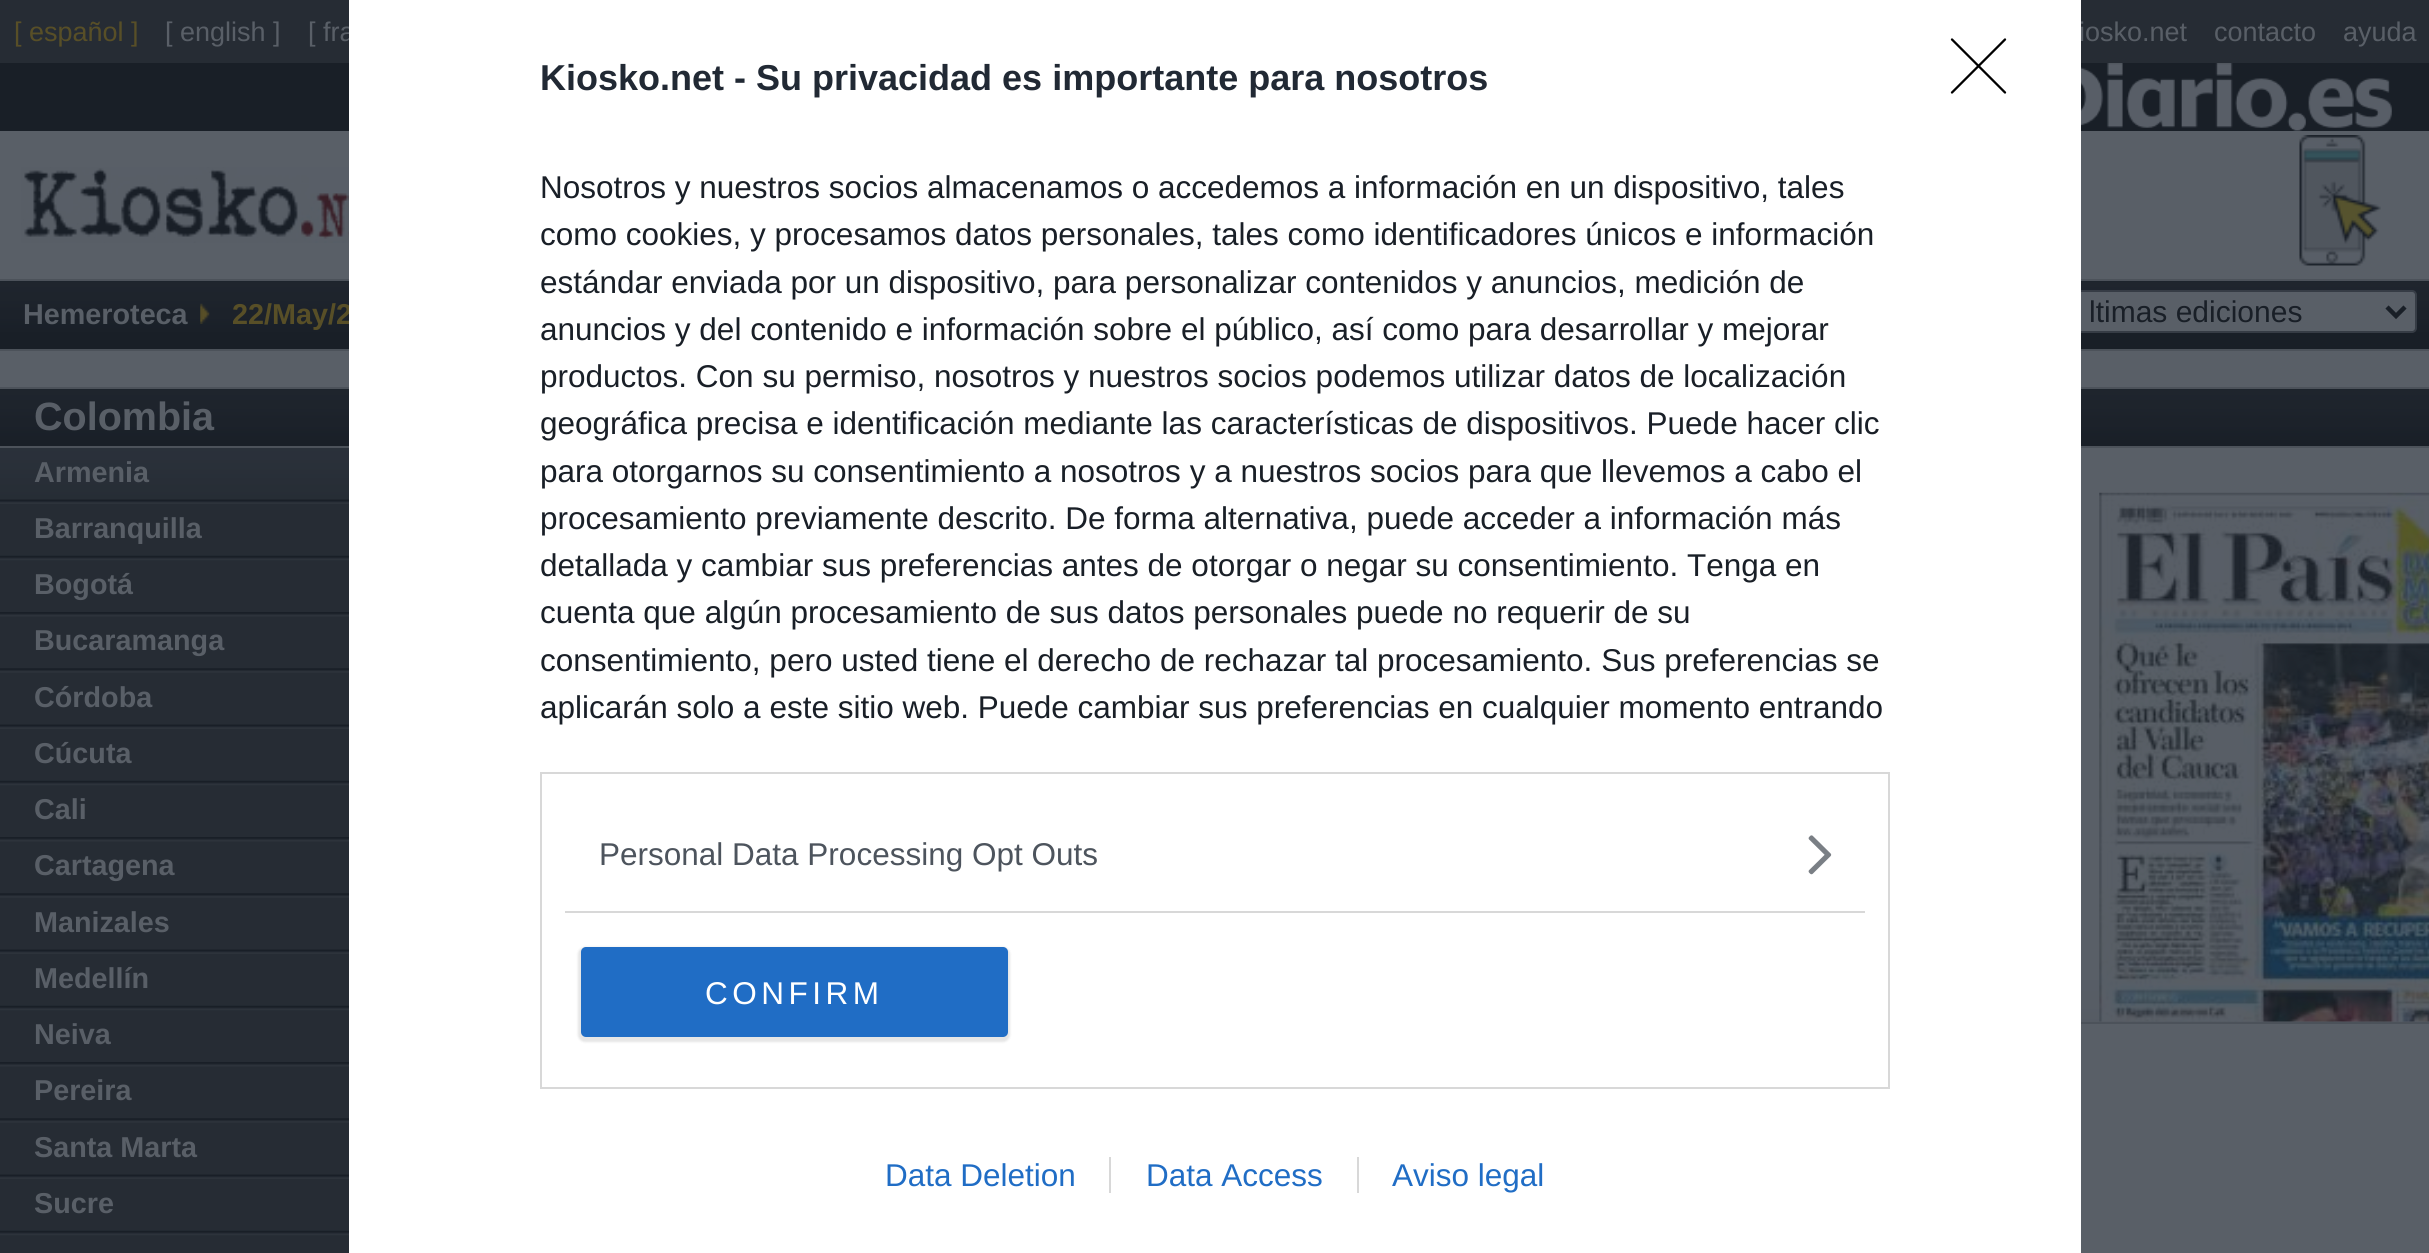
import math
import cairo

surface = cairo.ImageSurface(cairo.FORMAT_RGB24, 2429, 1253)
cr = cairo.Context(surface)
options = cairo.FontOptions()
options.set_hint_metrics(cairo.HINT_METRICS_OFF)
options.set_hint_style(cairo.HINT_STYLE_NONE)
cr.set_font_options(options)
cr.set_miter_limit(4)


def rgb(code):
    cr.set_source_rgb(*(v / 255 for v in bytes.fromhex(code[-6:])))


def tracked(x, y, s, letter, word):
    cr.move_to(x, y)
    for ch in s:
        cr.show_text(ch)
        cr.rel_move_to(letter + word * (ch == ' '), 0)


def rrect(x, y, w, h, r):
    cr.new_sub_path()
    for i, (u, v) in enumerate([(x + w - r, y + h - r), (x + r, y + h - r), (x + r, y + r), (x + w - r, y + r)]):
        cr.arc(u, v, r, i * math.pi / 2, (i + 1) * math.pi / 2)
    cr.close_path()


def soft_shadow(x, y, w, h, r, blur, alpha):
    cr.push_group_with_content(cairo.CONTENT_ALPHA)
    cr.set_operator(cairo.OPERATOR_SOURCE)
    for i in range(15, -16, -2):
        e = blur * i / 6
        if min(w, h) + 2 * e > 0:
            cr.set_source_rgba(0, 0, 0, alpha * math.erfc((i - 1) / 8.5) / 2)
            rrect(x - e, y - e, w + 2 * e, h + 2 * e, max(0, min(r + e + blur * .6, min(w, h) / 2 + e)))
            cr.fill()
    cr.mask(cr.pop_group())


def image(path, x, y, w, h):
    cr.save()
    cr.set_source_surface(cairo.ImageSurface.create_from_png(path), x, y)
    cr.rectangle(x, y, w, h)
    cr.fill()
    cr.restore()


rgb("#595f67")
cr.paint()
rgb("#262c34")
cr.rectangle(0, 0, 2429, 63)
cr.fill()
rgb("#191f27")
cr.rectangle(0, 63, 2429, 68)
cr.fill()
image("img/1.png", 2081, 63, 311, 68)
image("img/3.png", 21, 167, 328, 76)
image("img/4.png", 2299, 135, 82, 131)
cr.rectangle(0, 281, 2429, 68)
cr.fill()
image("img/5.png", 0, 281, 349, 51)
rgb("#4c525a")
cr.rectangle(0, 279, 2429, 2)
cr.fill()
cr.rectangle(0, 349, 2429, 2)
cr.fill()
image("img/6.png", 200, 303, 10, 21)
image("img/7.png", 2081, 281, 348, 51)
rgb("#595f67")
rrect(2058, 291, 358, 41, 4)
cr.fill_preserve()
rgb("#363c45")
cr.stroke()
cr.new_path()
cr.move_to(2387, 307)
cr.line_to(2396, 316)
cr.line_to(2405, 307)
rgb("#191f27")
cr.set_line_width(4.5)
cr.stroke()
rgb("#262c34")
cr.rectangle(0, 504, 349, 749)
cr.fill()
rgb("#191f27")
cr.rectangle(0, 389, 349, 57)
cr.fill()
image("img/5.png", 0, 389, 349, 51)
rgb("#4c525a")
cr.rectangle(0, 387, 349, 2)
cr.fill()
cr.rectangle(0, 446, 349, 2)
cr.fill()
image("img/8.png", 0, 448, 349, 52)
image("img/9.png", 0, 499, 349, 5)
image("img/10.png", 0, 555, 349, 6)
image("img/11.png", 0, 612, 349, 5)
image("img/12.png", 0, 668, 349, 5)
image("img/13.png", 0, 724, 349, 5)
image("img/10.png", 0, 780, 349, 6)
image("img/11.png", 0, 837, 349, 5)
image("img/12.png", 0, 893, 349, 5)
image("img/13.png", 0, 949, 349, 5)
image("img/10.png", 0, 1005, 349, 6)
image("img/11.png", 0, 1062, 349, 5)
image("img/12.png", 0, 1118, 349, 5)
image("img/13.png", 0, 1174, 349, 5)
image("img/10.png", 0, 1230, 349, 6)
rgb("#191f27")
cr.rectangle(2081, 389, 348, 57)
cr.fill()
image("img/7.png", 2081, 389, 348, 51)
rgb("#4c525a")
cr.rectangle(2081, 387, 348, 2)
cr.fill()
cr.rectangle(2081, 446, 348, 2)
cr.fill()
image("img/14.png", 2081, 980, 348, 42)
cr.rectangle(2081, 1022, 348, 2)
cr.fill()
image("img/15.png", 2099, 492, 330, 530)
cr.select_font_face("Liberation Sans")
cr.set_font_size(27)
rgb("#584f27")
cr.move_to(14, 41)
cr.show_text("[ español ]")
rgb("#595f67")
for x, y, s in [
    (165, 41, "[ english ]"),
    (308, 41, "[ fra"),
    (2079, 41, "iosko.net"),
    (2214, 41, "contacto"),
    (2343, 41, "ayuda"),
]:
    cr.move_to(x, y)
    cr.show_text(s)
cr.select_font_face("Liberation Sans", cairo.FONT_SLANT_NORMAL, cairo.FONT_WEIGHT_BOLD)
cr.set_font_size(28.75)
cr.move_to(23, 324)
cr.show_text("Hemeroteca")
rgb("#584f27")
cr.move_to(232, 324)
cr.show_text("22/May/2")
rgb("#ffffff")
cr.rectangle(349, 0, 1732, 1253)
cr.fill()
cr.rectangle(541, 773, 1348, 315)
rgb("#d8d8d8")
cr.set_line_width(2)
cr.stroke()
image("img/2.png", 1808, 835, 24, 40)
cr.new_path()
cr.move_to(1952, 39.5)
cr.line_to(2005, 92.5)
cr.move_to(2005, 39.5)
cr.line_to(1952, 92.5)
rgb("#000000")
cr.set_line_width(2.3)
cr.set_line_cap(cairo.LINE_CAP_ROUND)
cr.set_line_join(cairo.LINE_JOIN_ROUND)
cr.stroke()
rgb("#000000")
soft_shadow(578, 947, 432, 95, 7, 1, 0.1)
rgb("#206dc5")
rrect(581, 947, 427, 90, 5)
cr.fill()
cr.select_font_face("Liberation Sans")
cr.set_font_size(31.5)
rgb("#ffffff")
tracked(705, 1004, "CONFIRM", 4.5, 0)
rgb("#4d545d")
cr.move_to(599, 865)
cr.show_text("Personal Data Processing Opt Outs")
rgb("#d8d8d8")
cr.rectangle(565, 911, 1300, 2)
cr.fill()
rgb("#191f27")
for x, y, s in [
    (540, 718, "aplicarán solo a este sitio web. Puede cambiar sus preferencias en cualquier momento entrando"),
    (540, 671, "consentimiento, pero usted tiene el derecho de rechazar tal procesamiento. Sus preferencias se"),
    (540, 623, "cuenta que algún procesamiento de sus datos personales puede no requerir de su"),
    (540, 576, "detallada y cambiar sus preferencias antes de otorgar o negar su consentimiento. Tenga en"),
    (540, 529, "procesamiento previamente descrito. De forma alternativa, puede acceder a información más"),
    (540, 482, "para otorgarnos su consentimiento a nosotros y a nuestros socios para que llevemos a cabo el"),
    (540, 434, "geográfica precisa e identificación mediante las características de dispositivos. Puede hacer clic"),
    (540, 387, "productos. Con su permiso, nosotros y nuestros socios podemos utilizar datos de localización"),
    (540, 340, "anuncios y del contenido e información sobre el público, así como para desarrollar y mejorar"),
    (540, 293, "estándar enviada por un dispositivo, para personalizar contenidos y anuncios, medición de"),
    (540, 245, "como cookies, y procesamos datos personales, tales como identificadores únicos e información"),
    (540, 198, "Nosotros y nuestros socios almacenamos o accedemos a información en un dispositivo, tales"),
]:
    cr.move_to(x, y)
    cr.show_text(s)
rgb("#206dc5")
cr.move_to(1392, 1186)
cr.show_text("Aviso legal")
rgb("#d8d8d8")
cr.rectangle(1357, 1157, 2, 36)
cr.fill()
rgb("#206dc5")
cr.move_to(1146, 1186)
cr.show_text("Data Access")
rgb("#d8d8d8")
cr.rectangle(1109, 1157, 2, 36)
cr.fill()
rgb("#206dc5")
cr.move_to(885, 1186)
cr.show_text("Data Deletion")
cr.select_font_face("Liberation Sans", cairo.FONT_SLANT_NORMAL, cairo.FONT_WEIGHT_BOLD)
cr.set_font_size(36)
rgb("#212934")
cr.move_to(540, 90)
cr.show_text("Kiosko.net - Su privacidad es importante para nosotros")
cr.select_font_face("Liberation Sans")
cr.set_font_size(30)
rgb("#191f27")
cr.move_to(2089, 322)
cr.show_text("ltimas ediciones")
cr.select_font_face("Liberation Sans", cairo.FONT_SLANT_NORMAL, cairo.FONT_WEIGHT_BOLD)
cr.set_font_size(39.5)
rgb("#595f67")
cr.move_to(34, 430)
cr.show_text("Colombia")
cr.set_font_size(28.75)
for x, y, s in [
    (34, 482, "Armenia"),
    (34, 538, "Barranquilla"),
    (34, 594, "Bogotá"),
    (34, 650, "Bucaramanga"),
    (34, 707, "Córdoba"),
    (34, 763, "Cúcuta"),
    (34, 819, "Cali"),
    (34, 875, "Cartagena"),
    (34, 932, "Manizales"),
    (34, 988, "Medellín"),
    (34, 1044, "Neiva"),
    (34, 1100, "Pereira"),
    (34, 1157, "Santa Marta"),
    (34, 1213, "Sucre"),
]:
    cr.move_to(x, y)
    cr.show_text(s)
surface.write_to_png("page.png")
